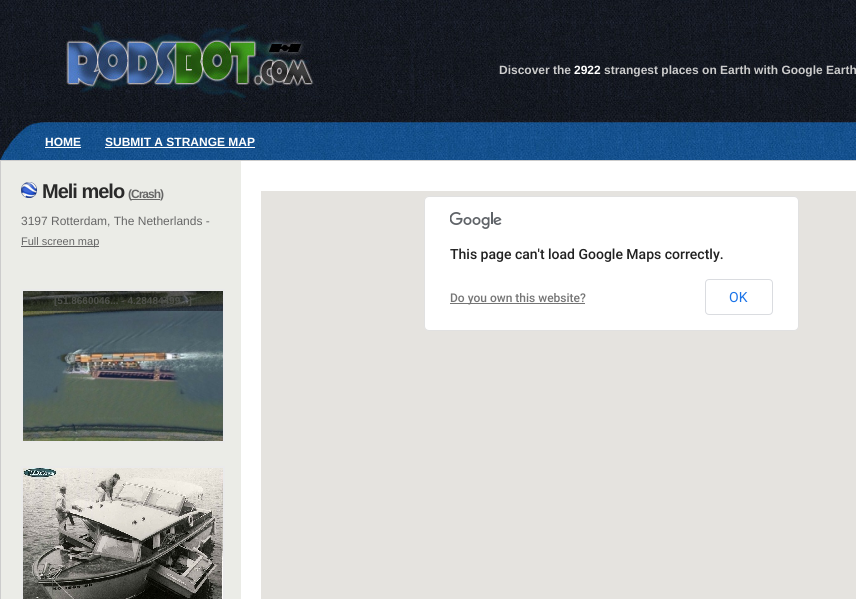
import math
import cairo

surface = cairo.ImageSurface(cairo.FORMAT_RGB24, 856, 599)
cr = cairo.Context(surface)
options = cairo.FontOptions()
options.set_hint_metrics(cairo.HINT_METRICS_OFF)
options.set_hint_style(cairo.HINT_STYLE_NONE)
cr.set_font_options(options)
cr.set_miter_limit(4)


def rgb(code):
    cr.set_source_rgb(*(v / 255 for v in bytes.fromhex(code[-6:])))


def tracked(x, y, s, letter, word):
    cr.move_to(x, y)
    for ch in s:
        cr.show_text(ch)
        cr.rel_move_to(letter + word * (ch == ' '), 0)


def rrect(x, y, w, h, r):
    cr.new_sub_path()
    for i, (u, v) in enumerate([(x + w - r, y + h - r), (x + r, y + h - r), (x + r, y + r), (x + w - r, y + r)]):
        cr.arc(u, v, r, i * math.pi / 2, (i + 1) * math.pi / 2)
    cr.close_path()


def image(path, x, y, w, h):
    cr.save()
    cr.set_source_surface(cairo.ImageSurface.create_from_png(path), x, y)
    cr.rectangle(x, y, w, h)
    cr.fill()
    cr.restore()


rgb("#ffffff")
cr.paint()
image("img/1.png", 0, 0, 856, 120)
image("img/2.png", 0, 120, 856, 40)
for x, y, w, h, color in [
    (45, 147, 36, 1, "#ffffff"),
    (105, 147, 150, 1, "#ffffff"),
    (1, 161, 240, 438, "#ebece7"),
]:
    rgb(color)
    cr.rectangle(x, y, w, h)
    cr.fill()
cr.rectangle(0.5, 160.5, 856, 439)
rgb("#cccccc")
cr.set_line_width(1)
cr.stroke()
image("img/3.png", 21, 182, 16, 16)
rgb("#666666")
cr.rectangle(131, 199, 29, 1)
cr.fill()
cr.rectangle(21, 246, 78, 1)
cr.fill()
cr.rectangle(22, 290, 202, 152)
rgb("#eaeaea")
cr.set_line_width(2)
cr.stroke()
image("img/4.png", 23, 291, 200, 150)
image("img/5.png", 23, 291, 200, 20)
cr.rectangle(22, 467, 202, 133)
cr.stroke()
image("img/6.png", 23, 468, 200, 131)
rgb("#e5e3df")
cr.rectangle(261, 191, 595, 408)
cr.fill()
rgb("#ffffff")
rrect(424, 196, 375, 135, 5)
cr.fill()
rrect(424.5, 196.5, 374, 134, 4.5)
cr.set_source_rgba(0, 0, 0, 0.12)
cr.set_line_width(1)
cr.stroke()
image("img/7.png", 450, 212, 52, 17)
rgb("#757575")
cr.rectangle(450, 303, 135, 1)
cr.fill()
rrect(705.5, 279.5, 67, 35, 3.5)
rgb("#dadce0")
cr.stroke()
cr.select_font_face("Liberation Sans", cairo.FONT_SLANT_NORMAL, cairo.FONT_WEIGHT_BOLD)
cr.set_font_size(12)
rgb("#cccccc")
cr.move_to(499, 74)
cr.show_text("Discover the")
rgb("#ffffff")
cr.move_to(574, 74)
cr.show_text("2922")
rgb("#cccccc")
cr.move_to(604, 74)
cr.show_text("strangest places on Earth with Google Earth")
rgb("#ffffff")
cr.move_to(45, 146)
cr.show_text("HOME")
cr.move_to(105, 146)
cr.show_text("SUBMIT A STRANGE MAP")
cr.set_font_size(20)
rgb("#2a2a2a")
tracked(42, 198, "Meli melo", -1, 0)
cr.set_font_size(12)
rgb("#666666")
tracked(128, 198, "(Crash)", -1, 0)
cr.select_font_face("Liberation Sans")
cr.move_to(21, 225)
cr.show_text("3197 Rotterdam, The Netherlands -")
cr.set_font_size(11)
cr.move_to(21, 245)
cr.show_text("Full screen map")
cr.select_font_face("Liberation Sans", cairo.FONT_SLANT_NORMAL, cairo.FONT_WEIGHT_BOLD)
cr.set_font_size(10)
rgb("#4f514c")
cr.move_to(54, 304)
cr.show_text("[51.8660046... - 4.28484499...]")
cr.select_font_face("Roboto Medium")
cr.set_font_size(14)
rgb("#212121")
cr.move_to(450, 259)
cr.show_text("This page can't load Google Maps correctly.")
cr.set_font_size(12)
rgb("#757575")
cr.move_to(450, 302)
cr.show_text("Do you own this website?")
cr.select_font_face("Roboto")
cr.set_font_size(14)
rgb("#1a73e8")
cr.move_to(729, 302)
cr.show_text("OK")
surface.write_to_png("page.png")
